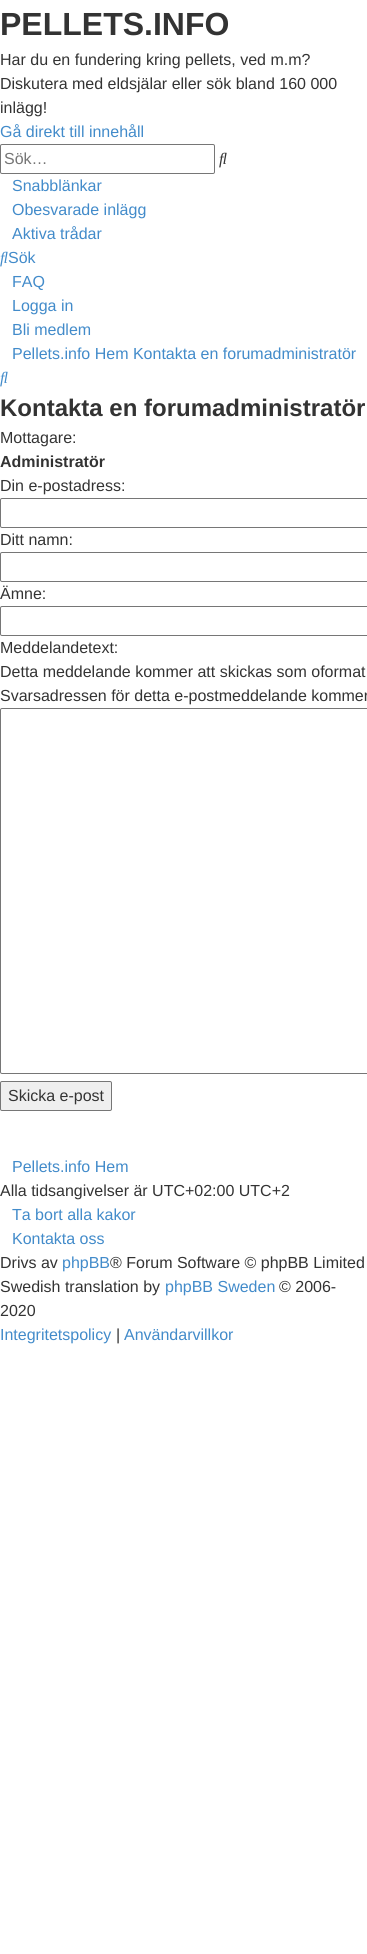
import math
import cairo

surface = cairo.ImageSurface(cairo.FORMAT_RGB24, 367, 1954)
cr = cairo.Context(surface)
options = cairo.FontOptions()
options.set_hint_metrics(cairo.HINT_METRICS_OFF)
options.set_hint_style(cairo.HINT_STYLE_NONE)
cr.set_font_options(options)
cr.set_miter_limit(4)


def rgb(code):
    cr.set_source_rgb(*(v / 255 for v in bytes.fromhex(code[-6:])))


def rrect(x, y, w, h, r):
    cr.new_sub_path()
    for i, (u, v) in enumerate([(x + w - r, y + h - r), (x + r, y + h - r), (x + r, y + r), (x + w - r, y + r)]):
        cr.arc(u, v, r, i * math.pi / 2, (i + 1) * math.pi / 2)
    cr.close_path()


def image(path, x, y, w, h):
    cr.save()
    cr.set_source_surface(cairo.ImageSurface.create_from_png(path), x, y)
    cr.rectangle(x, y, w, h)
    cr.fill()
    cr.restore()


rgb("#ffffff")
cr.paint()
rrect(0.5, 144.5, 214, 29, 1.5)
rgb("#767676")
cr.set_line_width(1)
cr.stroke()
image("img/1.png", 219, 152, 8, 16)
image("img/2.png", 0, 251, 8, 16)
image("img/2.png", 0, 371, 8, 16)
rrect(0.5, 498.5, 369, 29, 1.5)
cr.stroke()
rrect(0.5, 552.5, 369, 29, 1.5)
cr.stroke()
rrect(0.5, 606.5, 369, 29, 1.5)
cr.stroke()
rrect(0.5, 708.5, 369, 365, 1.5)
cr.stroke()
rgb("#efefef")
rrect(0.5, 1081.5, 111, 29, 1.5)
cr.fill_preserve()
rgb("#767676")
cr.stroke()
cr.select_font_face("Liberation Sans", cairo.FONT_SLANT_NORMAL, cairo.FONT_WEIGHT_BOLD)
cr.set_font_size(32)
rgb("#333333")
cr.move_to(0, 35)
cr.show_text("PELLETS.INFO")
cr.select_font_face("Liberation Sans")
cr.set_font_size(16)
for x, y, s in [
    (0, 65, "Har du en fundering kring pellets, ved m.m?"),
    (0, 89, "Diskutera med eldsjälar eller sök bland 160 000"),
    (0, 113, "inlägg!"),
]:
    cr.move_to(x, y)
    cr.show_text(s)
rgb("#428bca")
cr.move_to(0, 137)
cr.show_text("Gå direkt till innehåll")
rgb("#757575")
cr.move_to(4, 164)
cr.show_text("Sök…")
rgb("#428bca")
for x, y, s in [
    (12, 191, "Snabblänkar"),
    (12, 215, "Obesvarade inlägg"),
    (12, 239, "Aktiva trådar"),
    (8, 263, "Sök"),
    (12, 287, "FAQ"),
    (12, 311, "Logga in"),
    (12, 335, "Bli medlem"),
    (12, 359, "Pellets.info Hem Kontakta en forumadministratör"),
]:
    cr.move_to(x, y)
    cr.show_text(s)
cr.select_font_face("Liberation Sans", cairo.FONT_SLANT_NORMAL, cairo.FONT_WEIGHT_BOLD)
cr.set_font_size(24)
rgb("#333333")
cr.move_to(0, 416)
cr.show_text("Kontakta en forumadministratör")
cr.select_font_face("Liberation Sans")
cr.set_font_size(16)
cr.move_to(0, 443)
cr.show_text("Mottagare:")
cr.select_font_face("Liberation Sans", cairo.FONT_SLANT_NORMAL, cairo.FONT_WEIGHT_BOLD)
cr.move_to(0, 467)
cr.show_text("Administratör")
cr.select_font_face("Liberation Sans")
for x, y, s in [
    (0, 491, "Din e-postadress:"),
    (0, 545, "Ditt namn:"),
    (0, 599, "Ämne:"),
    (0, 653, "Meddelandetext:"),
    (0, 677, "Detta meddelande kommer att skickas som oformat"),
    (0, 701, "Svarsadressen för detta e-postmeddelande kommer"),
    (8, 1101, "Skicka e-post"),
]:
    cr.move_to(x, y)
    cr.show_text(s)
rgb("#428bca")
cr.move_to(12, 1172)
cr.show_text("Pellets.info Hem")
rgb("#333333")
cr.move_to(0, 1196)
cr.show_text("Alla tidsangivelser är UTC+02:00 UTC+2")
rgb("#428bca")
cr.move_to(12, 1220)
cr.show_text("Ta bort alla kakor")
cr.move_to(12, 1244)
cr.show_text("Kontakta oss")
rgb("#333333")
cr.move_to(0, 1268)
cr.show_text("Drivs av")
rgb("#428bca")
cr.move_to(62, 1268)
cr.show_text("phpBB")
rgb("#333333")
cr.move_to(110, 1268)
cr.show_text("® Forum Software © phpBB Limited")
cr.move_to(0, 1292)
cr.show_text("Swedish translation by")
rgb("#428bca")
cr.move_to(165, 1292)
cr.show_text("phpBB Sweden")
rgb("#333333")
cr.move_to(279, 1292)
cr.show_text("© 2006-")
cr.move_to(0, 1316)
cr.show_text("2020")
rgb("#428bca")
cr.move_to(0, 1340)
cr.show_text("Integritetspolicy")
rgb("#333333")
cr.move_to(116, 1340)
cr.show_text("|")
rgb("#428bca")
cr.move_to(124, 1340)
cr.show_text("Användarvillkor")
surface.write_to_png("page.png")
